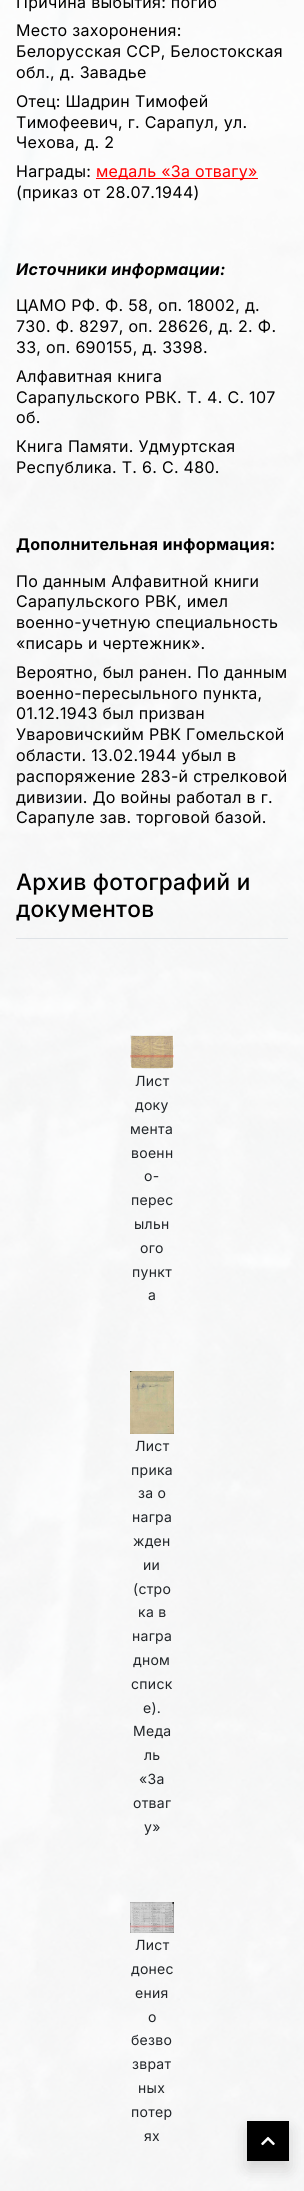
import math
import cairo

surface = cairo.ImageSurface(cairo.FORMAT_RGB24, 304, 2191)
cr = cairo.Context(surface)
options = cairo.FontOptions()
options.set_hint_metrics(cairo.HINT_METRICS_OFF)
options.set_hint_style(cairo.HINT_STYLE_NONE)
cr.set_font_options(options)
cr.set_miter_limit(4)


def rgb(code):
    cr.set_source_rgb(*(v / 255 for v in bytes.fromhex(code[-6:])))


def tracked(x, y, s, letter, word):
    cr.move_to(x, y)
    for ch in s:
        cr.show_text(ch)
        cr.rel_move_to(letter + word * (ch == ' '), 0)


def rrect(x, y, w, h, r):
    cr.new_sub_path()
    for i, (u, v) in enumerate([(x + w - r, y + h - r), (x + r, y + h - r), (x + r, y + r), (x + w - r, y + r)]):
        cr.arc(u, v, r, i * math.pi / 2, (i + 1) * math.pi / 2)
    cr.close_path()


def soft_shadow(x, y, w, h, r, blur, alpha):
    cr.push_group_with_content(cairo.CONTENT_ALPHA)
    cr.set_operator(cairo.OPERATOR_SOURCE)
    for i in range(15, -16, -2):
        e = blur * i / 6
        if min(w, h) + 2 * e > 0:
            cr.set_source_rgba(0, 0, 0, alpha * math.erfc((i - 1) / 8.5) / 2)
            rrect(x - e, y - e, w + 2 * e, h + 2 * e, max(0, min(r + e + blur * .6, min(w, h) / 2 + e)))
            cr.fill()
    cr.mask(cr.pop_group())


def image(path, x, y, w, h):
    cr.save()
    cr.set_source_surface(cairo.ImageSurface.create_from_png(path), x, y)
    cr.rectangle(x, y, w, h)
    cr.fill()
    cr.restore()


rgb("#ffffff")
cr.paint()
image("img/1.png", 0, 0, 304, 2191)
rgb("#ff0000")
cr.rectangle(96, 178, 162, 1)
cr.fill()
rgb("#dee2e6")
cr.rectangle(16, 938, 272, 1)
cr.fill()
image("img/2.png", 130, 1035, 44, 34)
image("img/3.png", 130, 1371, 44, 63)
image("img/4.png", 130, 1902, 44, 31)
rgb("#000000")
soft_shadow(247, 2129, 42, 40, 1, 8, 0.15)
rgb("#000000")
cr.rectangle(248, 2122, 40, 38)
cr.fill_preserve()
cr.stroke()
image("img/5.png", 261, 2136, 14, 10)
cr.select_font_face("Inter")
cr.set_font_size(16)
for x, y, s in [
    (16, 8, "Причина выбытия: погиб"),
    (16, 36, "Место захоронения:"),
    (16, 57, "Белорусская ССР, Белостокская"),
    (16, 78, "обл., д. Завадье"),
    (16, 107, "Отец: Шадрин Тимофей"),
    (16, 128, "Тимофеевич, г. Сарапул, ул."),
    (16, 148, "Чехова, д. 2"),
    (16, 177, "Награды:"),
]:
    tracked(x, y, s, 0.3, 0)
rgb("#ff0000")
tracked(96, 177, "медаль «За отвагу»", 0.3, 0)
rgb("#000000")
tracked(16, 198, "(приказ от 28.07.1944)", 0.3, 0)
cr.select_font_face("Inter", cairo.FONT_SLANT_ITALIC, cairo.FONT_WEIGHT_BOLD)
tracked(16, 275, "Источники информации:", 0.3, 0)
cr.select_font_face("Inter")
for x, y, s in [
    (16, 311, "ЦАМО РФ. Ф. 58, оп. 18002, д."),
    (16, 332, "730. Ф. 8297, оп. 28626, д. 2. Ф."),
    (16, 353, "33, оп. 690155, д. 3398."),
    (16, 382, "Алфавитная книга"),
    (16, 403, "Сарапульского РВК. Т. 4. С. 107"),
    (16, 423, "об."),
    (16, 452, "Книга Памяти. Удмуртская"),
    (16, 473, "Республика. Т. 6. С. 480."),
]:
    tracked(x, y, s, 0.3, 0)
cr.select_font_face("Inter", cairo.FONT_SLANT_NORMAL, cairo.FONT_WEIGHT_BOLD)
tracked(16, 550, "Дополнительная информация:", 0.3, 0)
cr.select_font_face("Inter")
for x, y, s in [
    (16, 587, "По данным Алфавитной книги"),
    (16, 607, "Сарапульского РВК, имел"),
    (16, 628, "военно-учетную специальность"),
    (16, 649, "«писарь и чертежник»."),
    (16, 678, "Вероятно, был ранен. По данным"),
    (16, 699, "военно-пересыльного пункта,"),
    (16, 719, "01.12.1943 был призван"),
    (16, 740, "Уваровичскийм РВК Гомельской"),
    (16, 761, "области. 13.02.1944 убыл в"),
    (16, 782, "распоряжение 283-й стрелковой"),
    (16, 803, "дивизии. До войны работал в г."),
    (16, 823, "Сарапуле зав. торговой базой."),
]:
    tracked(x, y, s, 0.3, 0)
cr.select_font_face("Inter Medium")
cr.set_font_size(22.6)
tracked(16, 890, "Архив фотографий и", 0.3, 0)
tracked(16, 917, "документов", 0.3, 0)
cr.select_font_face("Inter")
cr.set_font_size(14)
rgb("#212529")
for x, y, s in [
    (135, 1086, "Лист"),
    (135, 1110, "доку"),
    (130, 1134, "мента"),
    (131, 1158, "военн"),
    (144, 1181, "о-"),
    (131, 1205, "перес"),
    (134, 1229, "ыльн"),
    (140, 1253, "ого"),
    (132, 1277, "пункт"),
    (148, 1300, "а"),
    (135, 1451, "Лист"),
    (131, 1475, "прика"),
    (138, 1498, "за о"),
    (132, 1522, "награ"),
    (133, 1546, "жден"),
    (143, 1570, "ии"),
    (133, 1594, "(стро"),
    (138, 1617, "ка в"),
    (132, 1641, "награ"),
    (133, 1665, "дном"),
    (131, 1689, "списк"),
    (143, 1713, "е)."),
    (133, 1736, "Меда"),
    (144, 1760, "ль"),
    (139, 1784, "«За"),
    (133, 1808, "отваг"),
    (144, 1832, "у»"),
    (135, 1950, "Лист"),
    (131, 1974, "донес"),
    (135, 1998, "ения"),
    (148, 2022, "о"),
    (131, 2045, "безво"),
    (132, 2069, "зврат"),
    (138, 2093, "ных"),
    (131, 2117, "потер"),
    (144, 2141, "ях"),
]:
    tracked(x, y, s, 0.3, 0)
surface.write_to_png("page.png")
